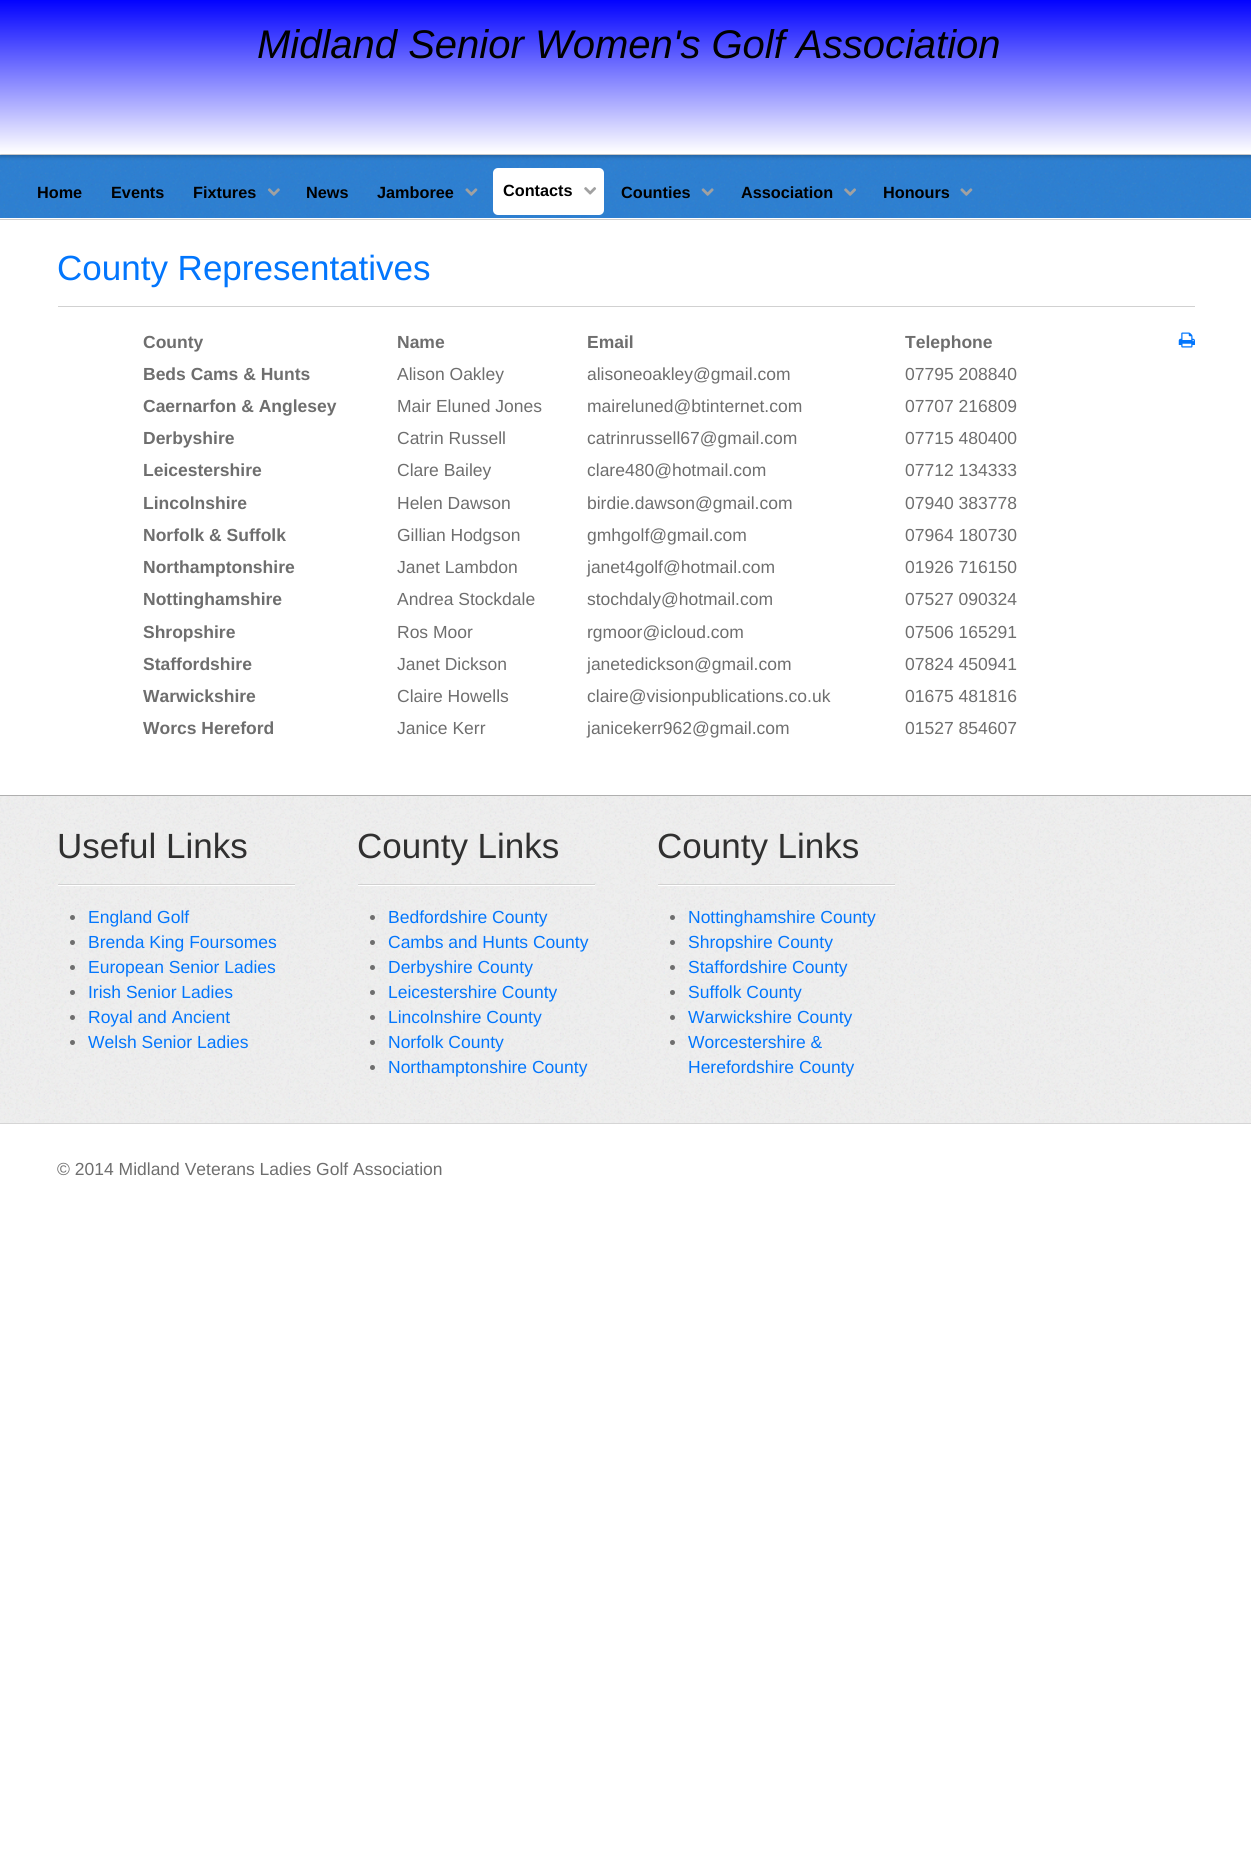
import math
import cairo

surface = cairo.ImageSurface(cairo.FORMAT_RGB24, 1251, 1874)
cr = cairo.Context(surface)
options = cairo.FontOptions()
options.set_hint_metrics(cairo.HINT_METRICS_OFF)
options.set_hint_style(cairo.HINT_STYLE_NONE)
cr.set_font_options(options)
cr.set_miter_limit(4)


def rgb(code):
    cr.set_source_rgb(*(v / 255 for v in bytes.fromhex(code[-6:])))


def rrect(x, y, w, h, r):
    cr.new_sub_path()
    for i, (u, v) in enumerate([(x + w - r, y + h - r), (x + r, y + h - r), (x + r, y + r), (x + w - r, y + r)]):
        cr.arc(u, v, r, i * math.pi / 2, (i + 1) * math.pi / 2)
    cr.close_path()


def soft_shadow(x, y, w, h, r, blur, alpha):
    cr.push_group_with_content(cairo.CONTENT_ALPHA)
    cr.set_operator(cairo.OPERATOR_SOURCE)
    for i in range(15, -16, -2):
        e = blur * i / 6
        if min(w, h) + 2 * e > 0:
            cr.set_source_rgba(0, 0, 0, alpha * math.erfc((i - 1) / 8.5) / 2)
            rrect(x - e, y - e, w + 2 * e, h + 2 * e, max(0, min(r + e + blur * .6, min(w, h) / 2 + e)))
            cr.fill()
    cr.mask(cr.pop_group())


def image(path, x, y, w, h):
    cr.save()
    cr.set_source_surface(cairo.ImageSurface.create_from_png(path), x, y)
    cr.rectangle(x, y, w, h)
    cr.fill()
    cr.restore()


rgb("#ffffff")
cr.paint()
rgb("#2d7fd1")
cr.rectangle(0, 155, 1251, 63)
cr.fill()
image("img/1.png", 0, 155, 1251, 63)
rgb("#000000")
soft_shadow(0, 1, 1251, 155, 0, 2.5, 0.3)
rgb("#ffffff")
cr.rectangle(0, 153, 1251, 1)
cr.fill()
gradient = cairo.LinearGradient(626, -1.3, 626, 153)
gradient.add_color_stop_rgba(0, 0, 0, 1, 1)
gradient.add_color_stop_rgba(1, 1, 1, 1, 1)
cr.set_source(gradient)
cr.rectangle(0, 0, 1251, 153)
cr.fill()
rgb("#cecece")
cr.rectangle(0, 219, 1251, 1)
cr.fill()
image("img/2.png", 267, 188, 13, 8)
image("img/3.png", 465, 188, 13, 8)
rgb("#ffffff")
rrect(493, 168, 111, 47, 5)
cr.fill()
image("img/4.png", 584, 187, 13, 8)
image("img/5.png", 701, 188, 13, 8)
image("img/6.png", 844, 188, 12, 8)
image("img/7.png", 960, 188, 13, 8)
rgb("#d1d1d1")
cr.rectangle(58, 306, 1137, 1)
cr.fill()
image("img/8.png", 1178, 332, 17, 16)
rgb("#eeeeee")
cr.rectangle(0, 796, 1251, 327)
cr.fill()
image("img/9.png", 0, 796, 1251, 327)
for x, y, w, h, color in [
    (0, 795, 1251, 1, "#afafaf"),
    (58, 885, 237, 1, "#ffffff"),
    (58, 884, 237, 1, "#d1d1d1"),
]:
    rgb(color)
    cr.rectangle(x, y, w, h)
    cr.fill()
rgb("#6e6e6e")
cr.arc(72.5, 917.5, 2.5, 0, 2 * math.pi)
cr.fill()
cr.arc(72.5, 942.5, 2.5, 0, 2 * math.pi)
cr.fill()
cr.arc(72.5, 967.5, 2.5, 0, 2 * math.pi)
cr.fill()
cr.arc(72.5, 992.5, 2.5, 0, 2 * math.pi)
cr.fill()
cr.arc(72.5, 1017.5, 2.5, 0, 2 * math.pi)
cr.fill()
cr.arc(72.5, 1042.5, 2.5, 0, 2 * math.pi)
cr.fill()
rgb("#ffffff")
cr.rectangle(358, 885, 237, 1)
cr.fill()
rgb("#d1d1d1")
cr.rectangle(358, 884, 237, 1)
cr.fill()
rgb("#6e6e6e")
cr.arc(372.5, 917.5, 2.5, 0, 2 * math.pi)
cr.fill()
cr.arc(372.5, 942.5, 2.5, 0, 2 * math.pi)
cr.fill()
cr.arc(372.5, 967.5, 2.5, 0, 2 * math.pi)
cr.fill()
cr.arc(372.5, 992.5, 2.5, 0, 2 * math.pi)
cr.fill()
cr.arc(372.5, 1017.5, 2.5, 0, 2 * math.pi)
cr.fill()
cr.arc(372.5, 1042.5, 2.5, 0, 2 * math.pi)
cr.fill()
cr.arc(372.5, 1067.5, 2.5, 0, 2 * math.pi)
cr.fill()
rgb("#ffffff")
cr.rectangle(658, 885, 237, 1)
cr.fill()
rgb("#d1d1d1")
cr.rectangle(658, 884, 237, 1)
cr.fill()
rgb("#6e6e6e")
cr.arc(672.5, 917.5, 2.5, 0, 2 * math.pi)
cr.fill()
cr.arc(672.5, 942.5, 2.5, 0, 2 * math.pi)
cr.fill()
cr.arc(672.5, 967.5, 2.5, 0, 2 * math.pi)
cr.fill()
cr.arc(672.5, 992.5, 2.5, 0, 2 * math.pi)
cr.fill()
cr.arc(672.5, 1017.5, 2.5, 0, 2 * math.pi)
cr.fill()
cr.arc(672.5, 1042.5, 2.5, 0, 2 * math.pi)
cr.fill()
rgb("#d5d5d5")
cr.rectangle(0, 1123, 1251, 1)
cr.fill()
cr.select_font_face("Liberation Sans", cairo.FONT_SLANT_ITALIC)
cr.set_font_size(40)
rgb("#000000")
cr.move_to(257, 58)
cr.show_text("Midland Senior Women's Golf Association")
cr.select_font_face("Liberation Sans", cairo.FONT_SLANT_NORMAL, cairo.FONT_WEIGHT_BOLD)
cr.set_font_size(16.25)
for x, y, s in [
    (37, 198, "Home"),
    (111, 198, "Events"),
    (193, 198, "Fixtures"),
    (306, 198, "News"),
    (377, 198, "Jamboree"),
    (503, 196, "Contacts"),
    (621, 198, "Counties"),
    (741, 198, "Association"),
    (883, 198, "Honours"),
]:
    cr.move_to(x, y)
    cr.show_text(s)
cr.select_font_face("Liberation Sans")
cr.set_font_size(35)
rgb("#0276fd")
cr.move_to(57, 280)
cr.show_text("County Representatives")
cr.select_font_face("Liberation Sans", cairo.FONT_SLANT_NORMAL, cairo.FONT_WEIGHT_BOLD)
cr.set_font_size(17.5)
rgb("#6e6e6e")
for x, y, s in [
    (143, 348, "County"),
    (397, 348, "Name"),
    (587, 348, "Email"),
    (905, 348, "Telephone"),
    (143, 380, "Beds Cams & Hunts"),
]:
    cr.move_to(x, y)
    cr.show_text(s)
cr.select_font_face("Liberation Sans")
for x, y, s in [
    (397, 380, "Alison Oakley"),
    (587, 380, "alisoneoakley@gmail.com"),
    (905, 380, "07795 208840"),
]:
    cr.move_to(x, y)
    cr.show_text(s)
cr.select_font_face("Liberation Sans", cairo.FONT_SLANT_NORMAL, cairo.FONT_WEIGHT_BOLD)
cr.move_to(143, 412)
cr.show_text("Caernarfon & Anglesey")
cr.select_font_face("Liberation Sans")
for x, y, s in [
    (397, 412, "Mair Eluned Jones"),
    (587, 412, "maireluned@btinternet.com"),
    (905, 412, "07707 216809"),
]:
    cr.move_to(x, y)
    cr.show_text(s)
cr.select_font_face("Liberation Sans", cairo.FONT_SLANT_NORMAL, cairo.FONT_WEIGHT_BOLD)
cr.move_to(143, 444)
cr.show_text("Derbyshire")
cr.select_font_face("Liberation Sans")
for x, y, s in [
    (397, 444, "Catrin Russell"),
    (587, 444, "catrinrussell67@gmail.com"),
    (905, 444, "07715 480400"),
]:
    cr.move_to(x, y)
    cr.show_text(s)
cr.select_font_face("Liberation Sans", cairo.FONT_SLANT_NORMAL, cairo.FONT_WEIGHT_BOLD)
cr.move_to(143, 476)
cr.show_text("Leicestershire")
cr.select_font_face("Liberation Sans")
for x, y, s in [
    (397, 476, "Clare Bailey"),
    (587, 476, "clare480@hotmail.com"),
    (905, 476, "07712 134333"),
]:
    cr.move_to(x, y)
    cr.show_text(s)
cr.select_font_face("Liberation Sans", cairo.FONT_SLANT_NORMAL, cairo.FONT_WEIGHT_BOLD)
cr.move_to(143, 509)
cr.show_text("Lincolnshire")
cr.select_font_face("Liberation Sans")
for x, y, s in [
    (397, 509, "Helen Dawson"),
    (587, 509, "birdie.dawson@gmail.com"),
    (905, 509, "07940 383778"),
]:
    cr.move_to(x, y)
    cr.show_text(s)
cr.select_font_face("Liberation Sans", cairo.FONT_SLANT_NORMAL, cairo.FONT_WEIGHT_BOLD)
cr.move_to(143, 541)
cr.show_text("Norfolk & Suffolk")
cr.select_font_face("Liberation Sans")
for x, y, s in [
    (397, 541, "Gillian Hodgson"),
    (587, 541, "gmhgolf@gmail.com"),
    (905, 541, "07964 180730"),
]:
    cr.move_to(x, y)
    cr.show_text(s)
cr.select_font_face("Liberation Sans", cairo.FONT_SLANT_NORMAL, cairo.FONT_WEIGHT_BOLD)
cr.move_to(143, 573)
cr.show_text("Northamptonshire")
cr.select_font_face("Liberation Sans")
for x, y, s in [
    (397, 573, "Janet Lambdon"),
    (587, 573, "janet4golf@hotmail.com"),
    (905, 573, "01926 716150"),
]:
    cr.move_to(x, y)
    cr.show_text(s)
cr.select_font_face("Liberation Sans", cairo.FONT_SLANT_NORMAL, cairo.FONT_WEIGHT_BOLD)
cr.move_to(143, 605)
cr.show_text("Nottinghamshire")
cr.select_font_face("Liberation Sans")
for x, y, s in [
    (397, 605, "Andrea Stockdale"),
    (587, 605, "stochdaly@hotmail.com"),
    (905, 605, "07527 090324"),
]:
    cr.move_to(x, y)
    cr.show_text(s)
cr.select_font_face("Liberation Sans", cairo.FONT_SLANT_NORMAL, cairo.FONT_WEIGHT_BOLD)
cr.move_to(143, 638)
cr.show_text("Shropshire")
cr.select_font_face("Liberation Sans")
for x, y, s in [
    (397, 638, "Ros Moor"),
    (587, 638, "rgmoor@icloud.com"),
    (905, 638, "07506 165291"),
]:
    cr.move_to(x, y)
    cr.show_text(s)
cr.select_font_face("Liberation Sans", cairo.FONT_SLANT_NORMAL, cairo.FONT_WEIGHT_BOLD)
cr.move_to(143, 670)
cr.show_text("Staffordshire")
cr.select_font_face("Liberation Sans")
for x, y, s in [
    (397, 670, "Janet Dickson"),
    (587, 670, "janetedickson@gmail.com"),
    (905, 670, "07824 450941"),
]:
    cr.move_to(x, y)
    cr.show_text(s)
cr.select_font_face("Liberation Sans", cairo.FONT_SLANT_NORMAL, cairo.FONT_WEIGHT_BOLD)
cr.move_to(143, 702)
cr.show_text("Warwickshire")
cr.select_font_face("Liberation Sans")
for x, y, s in [
    (397, 702, "Claire Howells"),
    (587, 702, "claire@visionpublications.co.uk"),
    (905, 702, "01675 481816"),
]:
    cr.move_to(x, y)
    cr.show_text(s)
cr.select_font_face("Liberation Sans", cairo.FONT_SLANT_NORMAL, cairo.FONT_WEIGHT_BOLD)
cr.move_to(143, 734)
cr.show_text("Worcs Hereford")
cr.select_font_face("Liberation Sans")
for x, y, s in [
    (397, 734, "Janice Kerr"),
    (587, 734, "janicekerr962@gmail.com"),
    (905, 734, "01527 854607"),
]:
    cr.move_to(x, y)
    cr.show_text(s)
cr.set_font_size(35)
rgb("#303030")
cr.move_to(57, 858)
cr.show_text("Useful Links")
cr.set_font_size(17.5)
rgb("#0276fd")
for x, y, s in [
    (88, 923, "England Golf"),
    (88, 948, "Brenda King Foursomes"),
    (88, 973, "European Senior Ladies"),
    (88, 998, "Irish Senior Ladies"),
    (88, 1023, "Royal and Ancient"),
    (88, 1048, "Welsh Senior Ladies"),
]:
    cr.move_to(x, y)
    cr.show_text(s)
cr.set_font_size(35)
rgb("#303030")
cr.move_to(357, 858)
cr.show_text("County Links")
cr.set_font_size(17.5)
rgb("#0276fd")
for x, y, s in [
    (388, 923, "Bedfordshire County"),
    (388, 948, "Cambs and Hunts County"),
    (388, 973, "Derbyshire County"),
    (388, 998, "Leicestershire County"),
    (388, 1023, "Lincolnshire County"),
    (388, 1048, "Norfolk County"),
    (388, 1073, "Northamptonshire County"),
]:
    cr.move_to(x, y)
    cr.show_text(s)
cr.set_font_size(35)
rgb("#303030")
cr.move_to(657, 858)
cr.show_text("County Links")
cr.set_font_size(17.5)
rgb("#0276fd")
for x, y, s in [
    (688, 923, "Nottinghamshire County"),
    (688, 948, "Shropshire County"),
    (688, 973, "Staffordshire County"),
    (688, 998, "Suffolk County"),
    (688, 1023, "Warwickshire County"),
    (688, 1048, "Worcestershire &"),
    (688, 1073, "Herefordshire County"),
]:
    cr.move_to(x, y)
    cr.show_text(s)
rgb("#6e6e6e")
cr.move_to(57, 1175)
cr.show_text("© 2014 Midland Veterans Ladies Golf Association")
surface.write_to_png("page.png")
